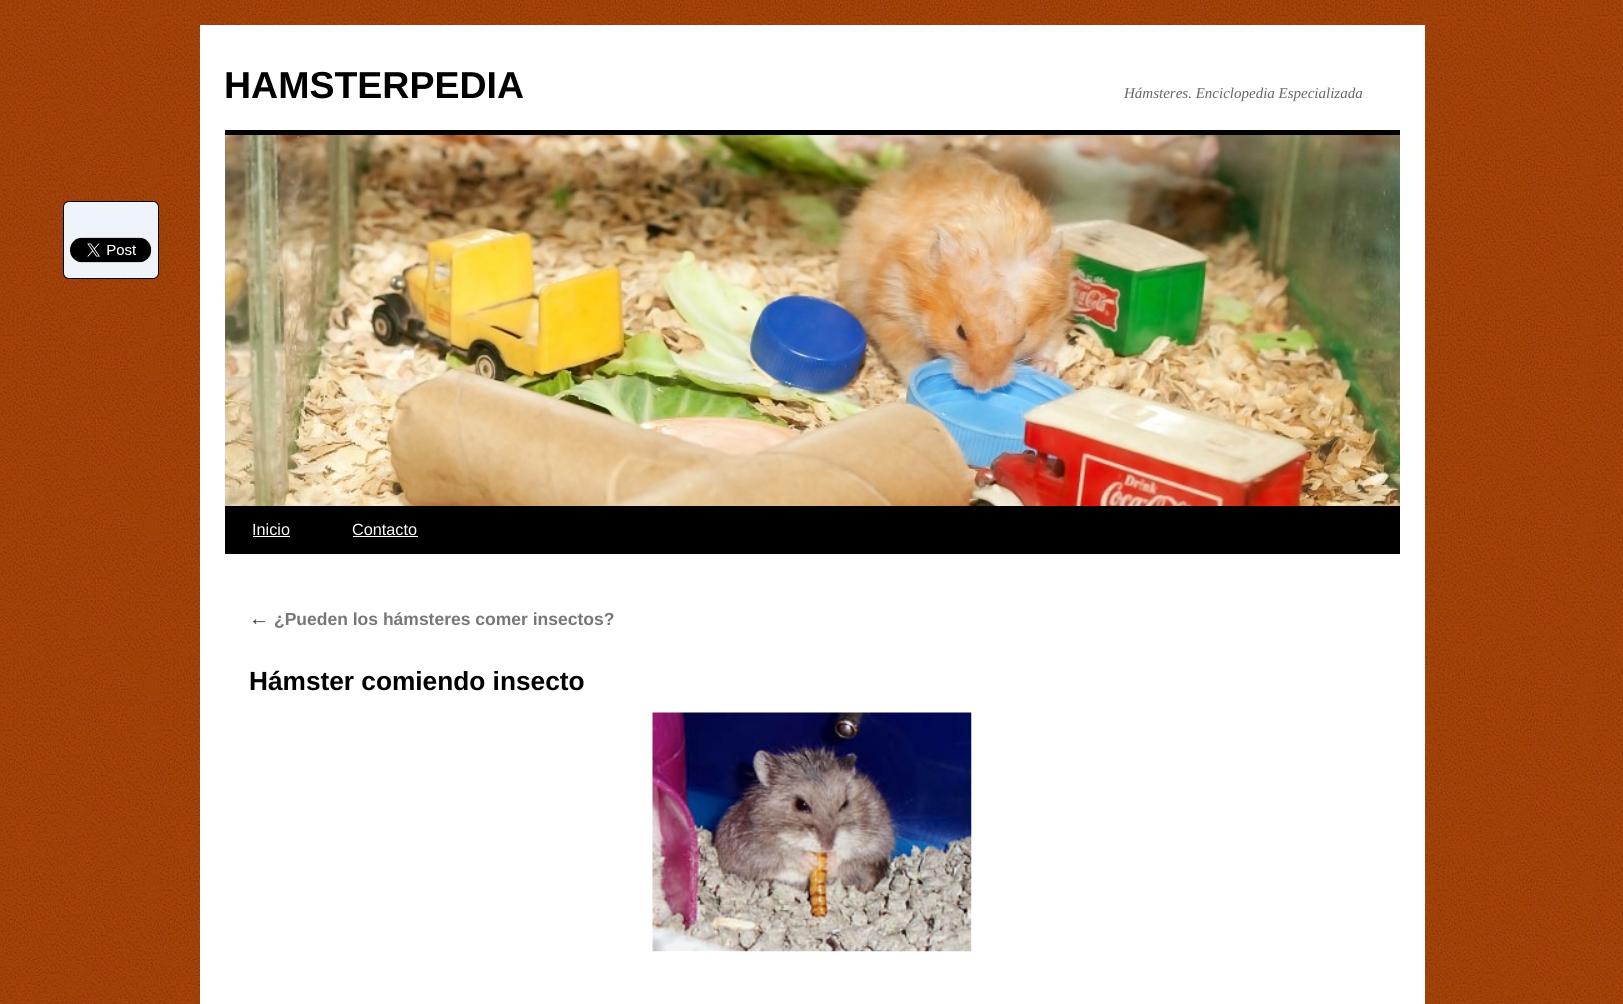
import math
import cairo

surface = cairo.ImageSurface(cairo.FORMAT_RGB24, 1623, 1004)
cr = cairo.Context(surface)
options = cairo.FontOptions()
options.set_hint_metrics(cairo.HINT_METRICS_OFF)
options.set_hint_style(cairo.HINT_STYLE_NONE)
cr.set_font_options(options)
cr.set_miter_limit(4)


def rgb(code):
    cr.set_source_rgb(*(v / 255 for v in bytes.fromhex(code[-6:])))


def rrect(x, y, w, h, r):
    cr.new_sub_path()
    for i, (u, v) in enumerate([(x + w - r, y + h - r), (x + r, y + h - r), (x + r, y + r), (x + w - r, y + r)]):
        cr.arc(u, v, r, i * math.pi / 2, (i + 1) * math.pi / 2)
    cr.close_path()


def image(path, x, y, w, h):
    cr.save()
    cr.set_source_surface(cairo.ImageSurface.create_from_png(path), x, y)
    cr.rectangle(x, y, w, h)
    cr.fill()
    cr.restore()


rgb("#ffffff")
cr.paint()
image("img/1.png", 0, 0, 1623, 1004)
rgb("#eff3fa")
rrect(63.5, 201.5, 95, 77, 5.5)
cr.fill_preserve()
rgb("#000000")
cr.set_line_width(1)
cr.stroke()
image("img/2.png", 70, 237, 82, 26)
rgb("#ffffff")
cr.rectangle(200, 25, 1225, 979)
cr.fill()
rgb("#000000")
cr.rectangle(225, 130, 1175, 5)
cr.fill()
image("img/3.png", 225, 135, 1175, 371)
for x, y, w, h, color in [
    (225, 506, 1175, 48, "#000000"),
    (253, 536, 37, 1, "#ffffff"),
    (353, 536, 65, 1, "#ffffff"),
]:
    rgb(color)
    cr.rectangle(x, y, w, h)
    cr.fill()
image("img/4.png", 652, 712, 320, 240)
cr.select_font_face("Liberation Sans", cairo.FONT_SLANT_NORMAL, cairo.FONT_WEIGHT_BOLD)
cr.set_font_size(37.5)
rgb("#000000")
cr.move_to(224, 98)
cr.show_text("HAMSTERPEDIA")
cr.select_font_face("Liberation Serif", cairo.FONT_SLANT_ITALIC)
cr.set_font_size(15)
rgb("#666666")
cr.move_to(1124, 98)
cr.show_text("Hámsteres. Enciclopedia Especializada")
cr.select_font_face("Liberation Sans")
cr.set_font_size(16.25)
rgb("#ffffff")
cr.move_to(252, 535)
cr.show_text("Inicio")
cr.move_to(352, 535)
cr.show_text("Contacto")
cr.select_font_face("Liberation Serif", cairo.FONT_SLANT_ITALIC)
cr.set_font_size(20)
rgb("#333333")
cr.move_to(249, 625)
cr.show_text("←")
cr.select_font_face("Liberation Sans", cairo.FONT_SLANT_NORMAL, cairo.FONT_WEIGHT_BOLD)
cr.set_font_size(17.5)
rgb("#777777")
cr.move_to(274, 625)
cr.show_text("¿Pueden los hámsteres comer insectos?")
cr.set_font_size(26.25)
rgb("#000000")
cr.move_to(249, 690)
cr.show_text("Hámster comiendo insecto")
surface.write_to_png("page.png")
